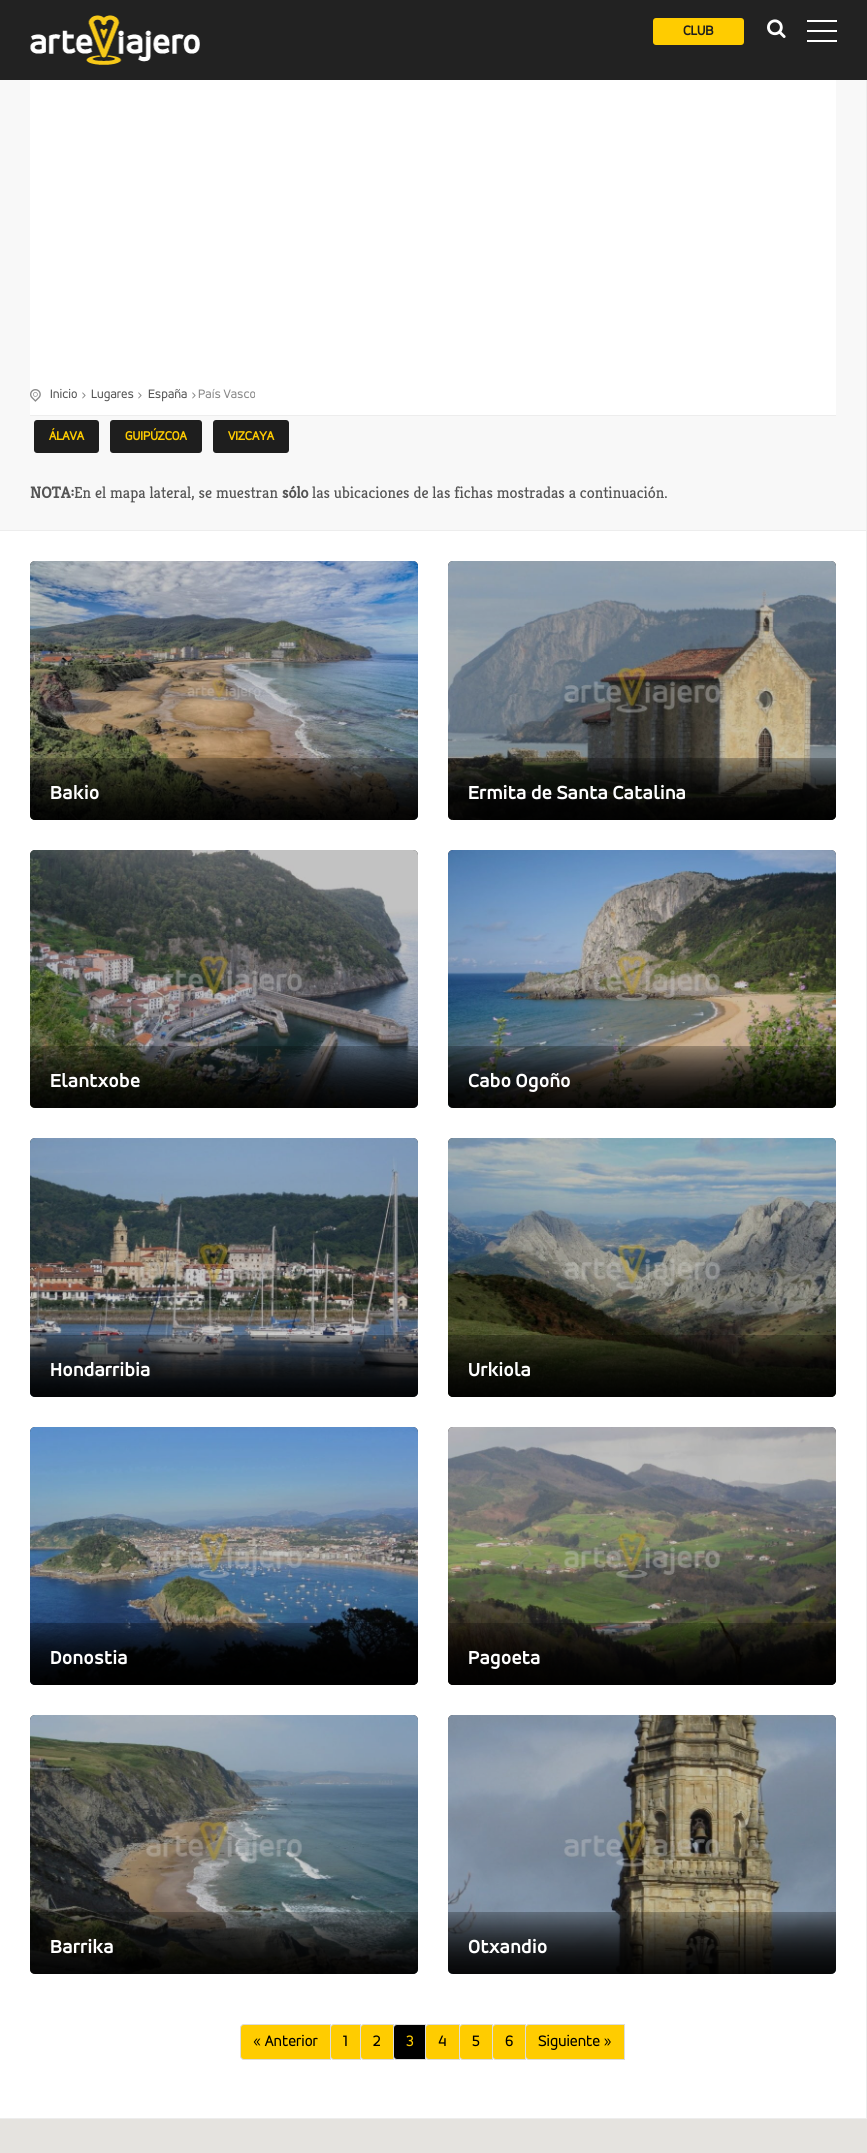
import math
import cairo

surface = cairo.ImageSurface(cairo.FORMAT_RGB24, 867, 2153)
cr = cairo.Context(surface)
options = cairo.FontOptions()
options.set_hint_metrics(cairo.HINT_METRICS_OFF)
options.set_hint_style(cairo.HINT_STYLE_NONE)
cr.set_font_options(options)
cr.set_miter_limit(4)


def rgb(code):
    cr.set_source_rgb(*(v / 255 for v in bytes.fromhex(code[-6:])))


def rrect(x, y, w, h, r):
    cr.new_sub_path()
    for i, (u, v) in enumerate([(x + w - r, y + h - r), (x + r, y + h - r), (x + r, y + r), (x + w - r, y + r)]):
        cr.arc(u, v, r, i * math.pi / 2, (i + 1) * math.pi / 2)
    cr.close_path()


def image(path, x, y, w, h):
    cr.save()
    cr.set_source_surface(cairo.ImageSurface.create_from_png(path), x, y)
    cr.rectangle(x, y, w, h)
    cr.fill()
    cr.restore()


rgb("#ffffff")
cr.paint()
rgb("#222222")
cr.rectangle(0, 0, 867, 80)
cr.fill()
image("img/1.png", 30, 15, 170, 50)
rgb("#ffcc00")
rrect(653, 18, 91, 27, 3)
cr.fill()
image("img/2.png", 767, 19, 19, 19)
for x, y, w, h, color in [
    (807, 30, 30, 2, "#ffffff"),
    (807, 20, 30, 2, "#ffffff"),
    (807, 40, 30, 2, "#ffffff"),
    (866, 80, 1, 2038, "#ededed"),
    (0, 80, 866, 450, "#f8f8f8"),
    (0, 530, 866, 1, "#ededed"),
    (30, 80, 806, 335, "#ffffff"),
    (30, 415, 806, 1, "#ededed"),
]:
    rgb(color)
    cr.rectangle(x, y, w, h)
    cr.fill()
image("img/3.png", 30, 389, 11, 13)
image("img/4.png", 82, 392, 4, 7)
image("img/4.png", 138, 392, 4, 7)
image("img/4.png", 192, 392, 4, 7)
rgb("#1e1e1e")
rrect(34, 420, 65, 33, 3)
cr.fill()
rrect(110, 420, 92, 33, 3)
cr.fill()
rrect(213, 420, 76, 33, 3)
cr.fill()
rgb("#000000")
rrect(30, 561, 388, 259, 5)
cr.fill()
image("img/5.png", 30, 561, 388, 259)
image("img/6.png", 30, 758, 388, 62)
rrect(448, 561, 388, 259, 5)
cr.fill()
image("img/7.png", 448, 561, 388, 259)
image("img/8.png", 448, 758, 388, 62)
rrect(30, 850, 388, 258, 5)
cr.fill()
image("img/9.png", 30, 850, 388, 258)
image("img/10.png", 30, 1046, 388, 62)
rrect(448, 850, 388, 258, 5)
cr.fill()
image("img/11.png", 448, 850, 388, 258)
image("img/12.png", 448, 1046, 388, 62)
rrect(30, 1138, 388, 259, 5)
cr.fill()
image("img/13.png", 30, 1138, 388, 259)
image("img/14.png", 30, 1335, 388, 62)
rrect(448, 1138, 388, 259, 5)
cr.fill()
image("img/15.png", 448, 1138, 388, 259)
image("img/16.png", 448, 1335, 388, 62)
rrect(30, 1427, 388, 258, 5)
cr.fill()
image("img/17.png", 30, 1427, 388, 258)
image("img/18.png", 30, 1623, 388, 62)
rrect(448, 1427, 388, 258, 5)
cr.fill()
image("img/19.png", 448, 1427, 388, 258)
image("img/20.png", 448, 1623, 388, 62)
rrect(30, 1715, 388, 259, 5)
cr.fill()
image("img/21.png", 30, 1715, 388, 259)
image("img/22.png", 30, 1912, 388, 62)
rrect(448, 1715, 388, 259, 5)
cr.fill()
image("img/23.png", 448, 1715, 388, 259)
image("img/24.png", 448, 1912, 388, 62)
rgb("#ffcc00")
cr.new_path()
cr.move_to(244, 2024.5)
cr.line_to(330.5, 2024.5)
cr.line_to(330.5, 2059.5)
cr.line_to(244, 2059.5)
cr.curve_to(242, 2059.5, 240.5, 2058, 240.5, 2056)
cr.line_to(240.5, 2028)
cr.curve_to(240.5, 2026, 242, 2024.5, 244, 2024.5)
cr.close_path()
cr.fill_preserve()
rgb("#dddddd")
cr.set_line_width(1)
cr.stroke()
rgb("#ffcc00")
cr.new_path()
cr.move_to(334, 2024.5)
cr.line_to(360.5, 2024.5)
cr.line_to(360.5, 2059.5)
cr.line_to(334, 2059.5)
cr.curve_to(332, 2059.5, 330.5, 2058, 330.5, 2056)
cr.line_to(330.5, 2028)
cr.curve_to(330.5, 2026, 332, 2024.5, 334, 2024.5)
cr.close_path()
cr.fill_preserve()
rgb("#dddddd")
cr.stroke()
rgb("#ffcc00")
cr.new_path()
cr.move_to(364, 2024.5)
cr.line_to(393.5, 2024.5)
cr.line_to(393.5, 2059.5)
cr.line_to(364, 2059.5)
cr.curve_to(362, 2059.5, 360.5, 2058, 360.5, 2056)
cr.line_to(360.5, 2028)
cr.curve_to(360.5, 2026, 362, 2024.5, 364, 2024.5)
cr.close_path()
cr.fill_preserve()
rgb("#dddddd")
cr.stroke()
rgb("#000000")
cr.new_path()
cr.move_to(397, 2024.5)
cr.line_to(425.5, 2024.5)
cr.line_to(425.5, 2059.5)
cr.line_to(397, 2059.5)
cr.curve_to(395, 2059.5, 393.5, 2058, 393.5, 2056)
cr.line_to(393.5, 2028)
cr.curve_to(393.5, 2026, 395, 2024.5, 397, 2024.5)
cr.close_path()
cr.fill_preserve()
rgb("#dddddd")
cr.stroke()
rgb("#ffcc00")
cr.new_path()
cr.move_to(429, 2024.5)
cr.line_to(459.5, 2024.5)
cr.line_to(459.5, 2059.5)
cr.line_to(429, 2059.5)
cr.curve_to(427, 2059.5, 425.5, 2058, 425.5, 2056)
cr.line_to(425.5, 2028)
cr.curve_to(425.5, 2026, 427, 2024.5, 429, 2024.5)
cr.close_path()
cr.fill_preserve()
rgb("#dddddd")
cr.stroke()
rgb("#ffcc00")
cr.new_path()
cr.move_to(463, 2024.5)
cr.line_to(492.5, 2024.5)
cr.line_to(492.5, 2059.5)
cr.line_to(463, 2059.5)
cr.curve_to(461, 2059.5, 459.5, 2058, 459.5, 2056)
cr.line_to(459.5, 2028)
cr.curve_to(459.5, 2026, 461, 2024.5, 463, 2024.5)
cr.close_path()
cr.fill_preserve()
rgb("#dddddd")
cr.stroke()
rgb("#ffcc00")
cr.new_path()
cr.move_to(496, 2024.5)
cr.line_to(525.5, 2024.5)
cr.line_to(525.5, 2059.5)
cr.line_to(496, 2059.5)
cr.curve_to(494, 2059.5, 492.5, 2058, 492.5, 2056)
cr.line_to(492.5, 2028)
cr.curve_to(492.5, 2026, 494, 2024.5, 496, 2024.5)
cr.close_path()
cr.fill_preserve()
rgb("#dddddd")
cr.stroke()
rgb("#ffcc00")
cr.new_path()
cr.move_to(529, 2024.5)
cr.line_to(624.5, 2024.5)
cr.line_to(624.5, 2059.5)
cr.line_to(529, 2059.5)
cr.curve_to(527, 2059.5, 525.5, 2058, 525.5, 2056)
cr.line_to(525.5, 2028)
cr.curve_to(525.5, 2026, 527, 2024.5, 529, 2024.5)
cr.close_path()
cr.fill_preserve()
rgb("#dddddd")
cr.stroke()
rgb("#ededed")
cr.rectangle(0, 2118, 867, 1)
cr.fill()
rgb("#e5e3df")
cr.rectangle(0, 2119, 867, 34)
cr.fill()
cr.select_font_face("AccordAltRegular", cairo.FONT_SLANT_NORMAL, cairo.FONT_WEIGHT_BOLD)
cr.set_font_size(14)
rgb("#1e1e1e")
cr.move_to(683, 35)
cr.show_text("CLUB")
cr.select_font_face("AccordAltRegular")
cr.set_font_size(13)
rgb("#555555")
for x, y, s in [
    (50, 398, "Inicio"),
    (91, 398, "Lugares"),
    (148, 398, "España"),
]:
    cr.move_to(x, y)
    cr.show_text(s)
rgb("#888888")
cr.move_to(198, 398)
cr.show_text("País Vasco")
cr.select_font_face("AccordAltRegular", cairo.FONT_SLANT_NORMAL, cairo.FONT_WEIGHT_BOLD)
rgb("#ffcc00")
for x, y, s in [
    (49, 440, "ÁLAVA"),
    (125, 440, "GUIPÚZCOA"),
    (228, 440, "VIZCAYA"),
]:
    cr.move_to(x, y)
    cr.show_text(s)
cr.select_font_face("Kreon", cairo.FONT_SLANT_NORMAL, cairo.FONT_WEIGHT_BOLD)
cr.set_font_size(16)
rgb("#555555")
cr.move_to(30, 498)
cr.show_text("NOTA:")
cr.select_font_face("Kreon")
cr.move_to(74, 498)
cr.show_text("En el mapa lateral, se muestran")
cr.select_font_face("Kreon", cairo.FONT_SLANT_NORMAL, cairo.FONT_WEIGHT_BOLD)
cr.move_to(282, 498)
cr.show_text("sólo")
cr.select_font_face("Kreon")
cr.move_to(312, 498)
cr.show_text("las ubicaciones de las fichas mostradas a continuación.")
cr.select_font_face("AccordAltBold", cairo.FONT_SLANT_NORMAL, cairo.FONT_WEIGHT_BOLD)
cr.set_font_size(20)
rgb("#ffffff")
for x, y, s in [
    (50, 799, "Bakio"),
    (468, 799, "Ermita de Santa Catalina"),
    (50, 1087, "Elantxobe"),
    (468, 1087, "Cabo Ogoño"),
    (50, 1376, "Hondarribia"),
    (468, 1376, "Urkiola"),
    (50, 1664, "Donostia"),
    (468, 1664, "Pagoeta"),
    (50, 1953, "Barrika"),
    (468, 1953, "Otxandio"),
]:
    cr.move_to(x, y)
    cr.show_text(s)
cr.select_font_face("AccordAltRegular")
cr.set_font_size(16)
rgb("#000000")
for x, y, s in [
    (253, 2046, "« Anterior"),
    (343, 2046, "1"),
    (373, 2046, "2"),
]:
    cr.move_to(x, y)
    cr.show_text(s)
rgb("#ffcc00")
cr.move_to(406, 2046)
cr.show_text("3")
rgb("#000000")
for x, y, s in [
    (438, 2046, "4"),
    (472, 2046, "5"),
    (505, 2046, "6"),
    (538, 2046, "Siguiente »"),
]:
    cr.move_to(x, y)
    cr.show_text(s)
surface.write_to_png("page.png")
